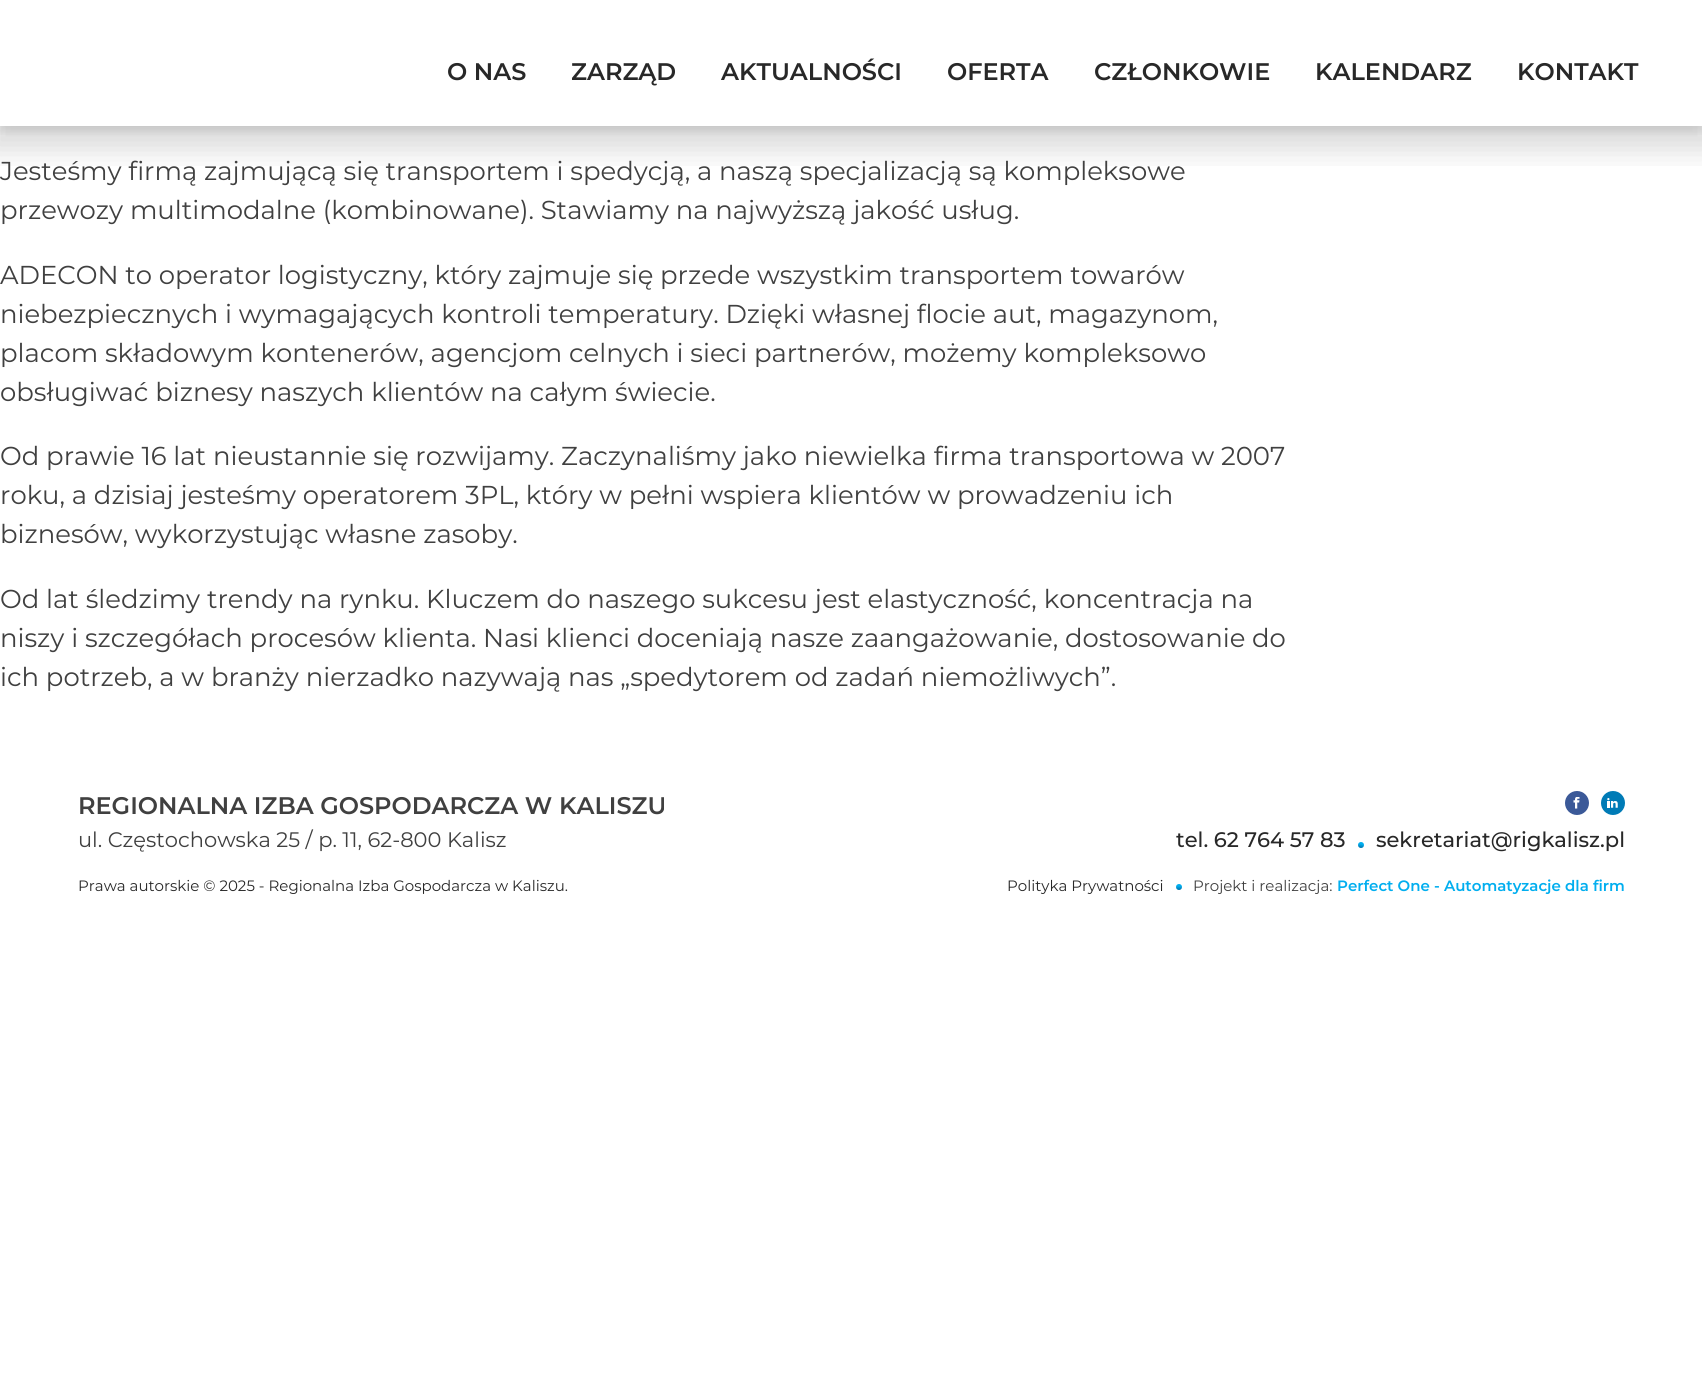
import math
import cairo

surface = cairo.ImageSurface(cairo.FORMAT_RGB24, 1702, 1376)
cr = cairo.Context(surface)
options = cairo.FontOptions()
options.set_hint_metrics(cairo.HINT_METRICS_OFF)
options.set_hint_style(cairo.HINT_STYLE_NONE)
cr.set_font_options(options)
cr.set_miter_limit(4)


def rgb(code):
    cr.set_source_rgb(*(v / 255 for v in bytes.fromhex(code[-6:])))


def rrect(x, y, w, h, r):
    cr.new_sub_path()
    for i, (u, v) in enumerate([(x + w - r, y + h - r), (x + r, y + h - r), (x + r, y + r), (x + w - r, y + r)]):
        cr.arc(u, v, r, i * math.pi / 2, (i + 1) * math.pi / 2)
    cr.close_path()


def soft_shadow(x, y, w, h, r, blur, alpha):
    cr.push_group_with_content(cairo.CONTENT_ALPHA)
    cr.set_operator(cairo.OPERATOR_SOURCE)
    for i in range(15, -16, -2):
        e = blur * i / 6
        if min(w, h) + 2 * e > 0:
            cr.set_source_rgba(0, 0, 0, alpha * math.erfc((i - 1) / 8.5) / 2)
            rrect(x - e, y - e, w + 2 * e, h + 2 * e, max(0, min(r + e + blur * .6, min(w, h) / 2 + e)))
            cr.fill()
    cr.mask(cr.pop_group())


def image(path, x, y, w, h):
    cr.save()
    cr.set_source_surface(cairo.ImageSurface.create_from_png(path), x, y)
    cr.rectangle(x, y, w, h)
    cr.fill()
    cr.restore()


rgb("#ffffff")
cr.paint()
cr.save()
cr.rectangle(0, 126, 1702, 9)
cr.clip()
rgb("#000000")
soft_shadow(0, 5, 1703, 126, 0, 4.5, 0.1)
cr.restore()
cr.save()
cr.rectangle(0, 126, 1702, 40)
cr.clip()
rgb("#000000")
soft_shadow(-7, 8, 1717, 141, 0, 15, 0.15)
cr.restore()
rgb("#3b5998")
cr.arc(1577, 803, 12, 0, 2 * math.pi)
cr.fill()
image("img/1.png", 1573, 797, 7, 12)
rgb("#007bb6")
cr.arc(1613, 803, 12, 0, 2 * math.pi)
cr.fill()
image("img/2.png", 1607, 798, 11, 10)
gradient = cairo.LinearGradient(1361, 841, 1360, 848)
gradient.add_color_stop_rgba(0.43, 0.004, 0.682, 0.937, 1)
gradient.add_color_stop_rgba(1, 0, 0.439, 0.659, 1)
cr.set_source(gradient)
cr.arc(1361, 845, 3, 0, 2 * math.pi)
cr.fill()
gradient = cairo.LinearGradient(1179, 883, 1179, 890)
gradient.add_color_stop_rgba(0.43, 0.004, 0.682, 0.937, 1)
gradient.add_color_stop_rgba(1, 0, 0.439, 0.659, 1)
cr.set_source(gradient)
cr.arc(1179, 887, 3, 0, 2 * math.pi)
cr.fill()
cr.select_font_face("Montserrat SemiBold")
cr.set_font_size(24)
rgb("#282828")
for x, y, s in [
    (447, 80, "O NAS"),
    (571, 80, "ZARZĄD"),
    (721, 80, "AKTUALNOŚCI"),
    (947, 80, "OFERTA"),
    (1094, 80, "CZŁONKOWIE"),
    (1315, 80, "KALENDARZ"),
    (1517, 80, "KONTAKT"),
]:
    cr.move_to(x, y)
    cr.show_text(s)
cr.select_font_face("Montserrat")
cr.set_font_size(25.9)
rgb("#404040")
for x, y, s in [
    (0, 180, "Jesteśmy firmą zajmującą się transportem i spedycją, a naszą specjalizacją są kompleksowe"),
    (0, 219, "przewozy multimodalne (kombinowane). Stawiamy na najwyższą jakość usług."),
    (0, 284, "ADECON to operator logistyczny, który zajmuje się przede wszystkim transportem towarów"),
    (0, 323, "niebezpiecznych i wymagających kontroli temperatury. Dzięki własnej flocie aut, magazynom,"),
    (0, 362, "placom składowym kontenerów, agencjom celnych i sieci partnerów, możemy kompleksowo"),
    (0, 401, "obsługiwać biznesy naszych klientów na całym świecie."),
    (0, 465, "Od prawie 16 lat nieustannie się rozwijamy. Zaczynaliśmy jako niewielka firma transportowa w 2007"),
    (0, 504, "roku, a dzisiaj jesteśmy operatorem 3PL, który w pełni wspiera klientów w prowadzeniu ich"),
    (0, 543, "biznesów, wykorzystując własne zasoby."),
    (0, 608, "Od lat śledzimy trendy na rynku. Kluczem do naszego sukcesu jest elastyczność, koncentracja na"),
    (0, 647, "niszy i szczegółach procesów klienta. Nasi klienci doceniają nasze zaangażowanie, dostosowanie do"),
    (0, 686, "ich potrzeb, a w branży nierzadko nazywają nas „spedytorem od zadań niemożliwych”."),
]:
    cr.move_to(x, y)
    cr.show_text(s)
cr.select_font_face("Montserrat SemiBold")
cr.set_font_size(24)
cr.move_to(78, 814)
cr.show_text("REGIONALNA IZBA GOSPODARCZA W KALISZU")
cr.select_font_face("Montserrat")
cr.set_font_size(21)
cr.move_to(78, 847)
cr.show_text("ul. Częstochowska 25 / p. 11, 62-800 Kalisz")
cr.select_font_face("Montserrat Medium")
rgb("#282828")
cr.move_to(1176, 847)
cr.show_text("tel. 62 764 57 83")
cr.move_to(1376, 847)
cr.show_text("sekretariat@rigkalisz.pl")
cr.select_font_face("Montserrat")
cr.set_font_size(15)
cr.move_to(78, 891)
cr.show_text("Prawa autorskie © 2025 - Regionalna Izba Gospodarcza w Kaliszu.")
cr.move_to(1007, 891)
cr.show_text("Polityka Prywatności")
rgb("#404040")
cr.move_to(1193, 891)
cr.show_text("Projekt i realizacja:")
cr.select_font_face("Montserrat SemiBold")
rgb("#01aeef")
cr.move_to(1337, 891)
cr.show_text("Perfect One - Automatyzacje dla firm")
surface.write_to_png("page.png")
